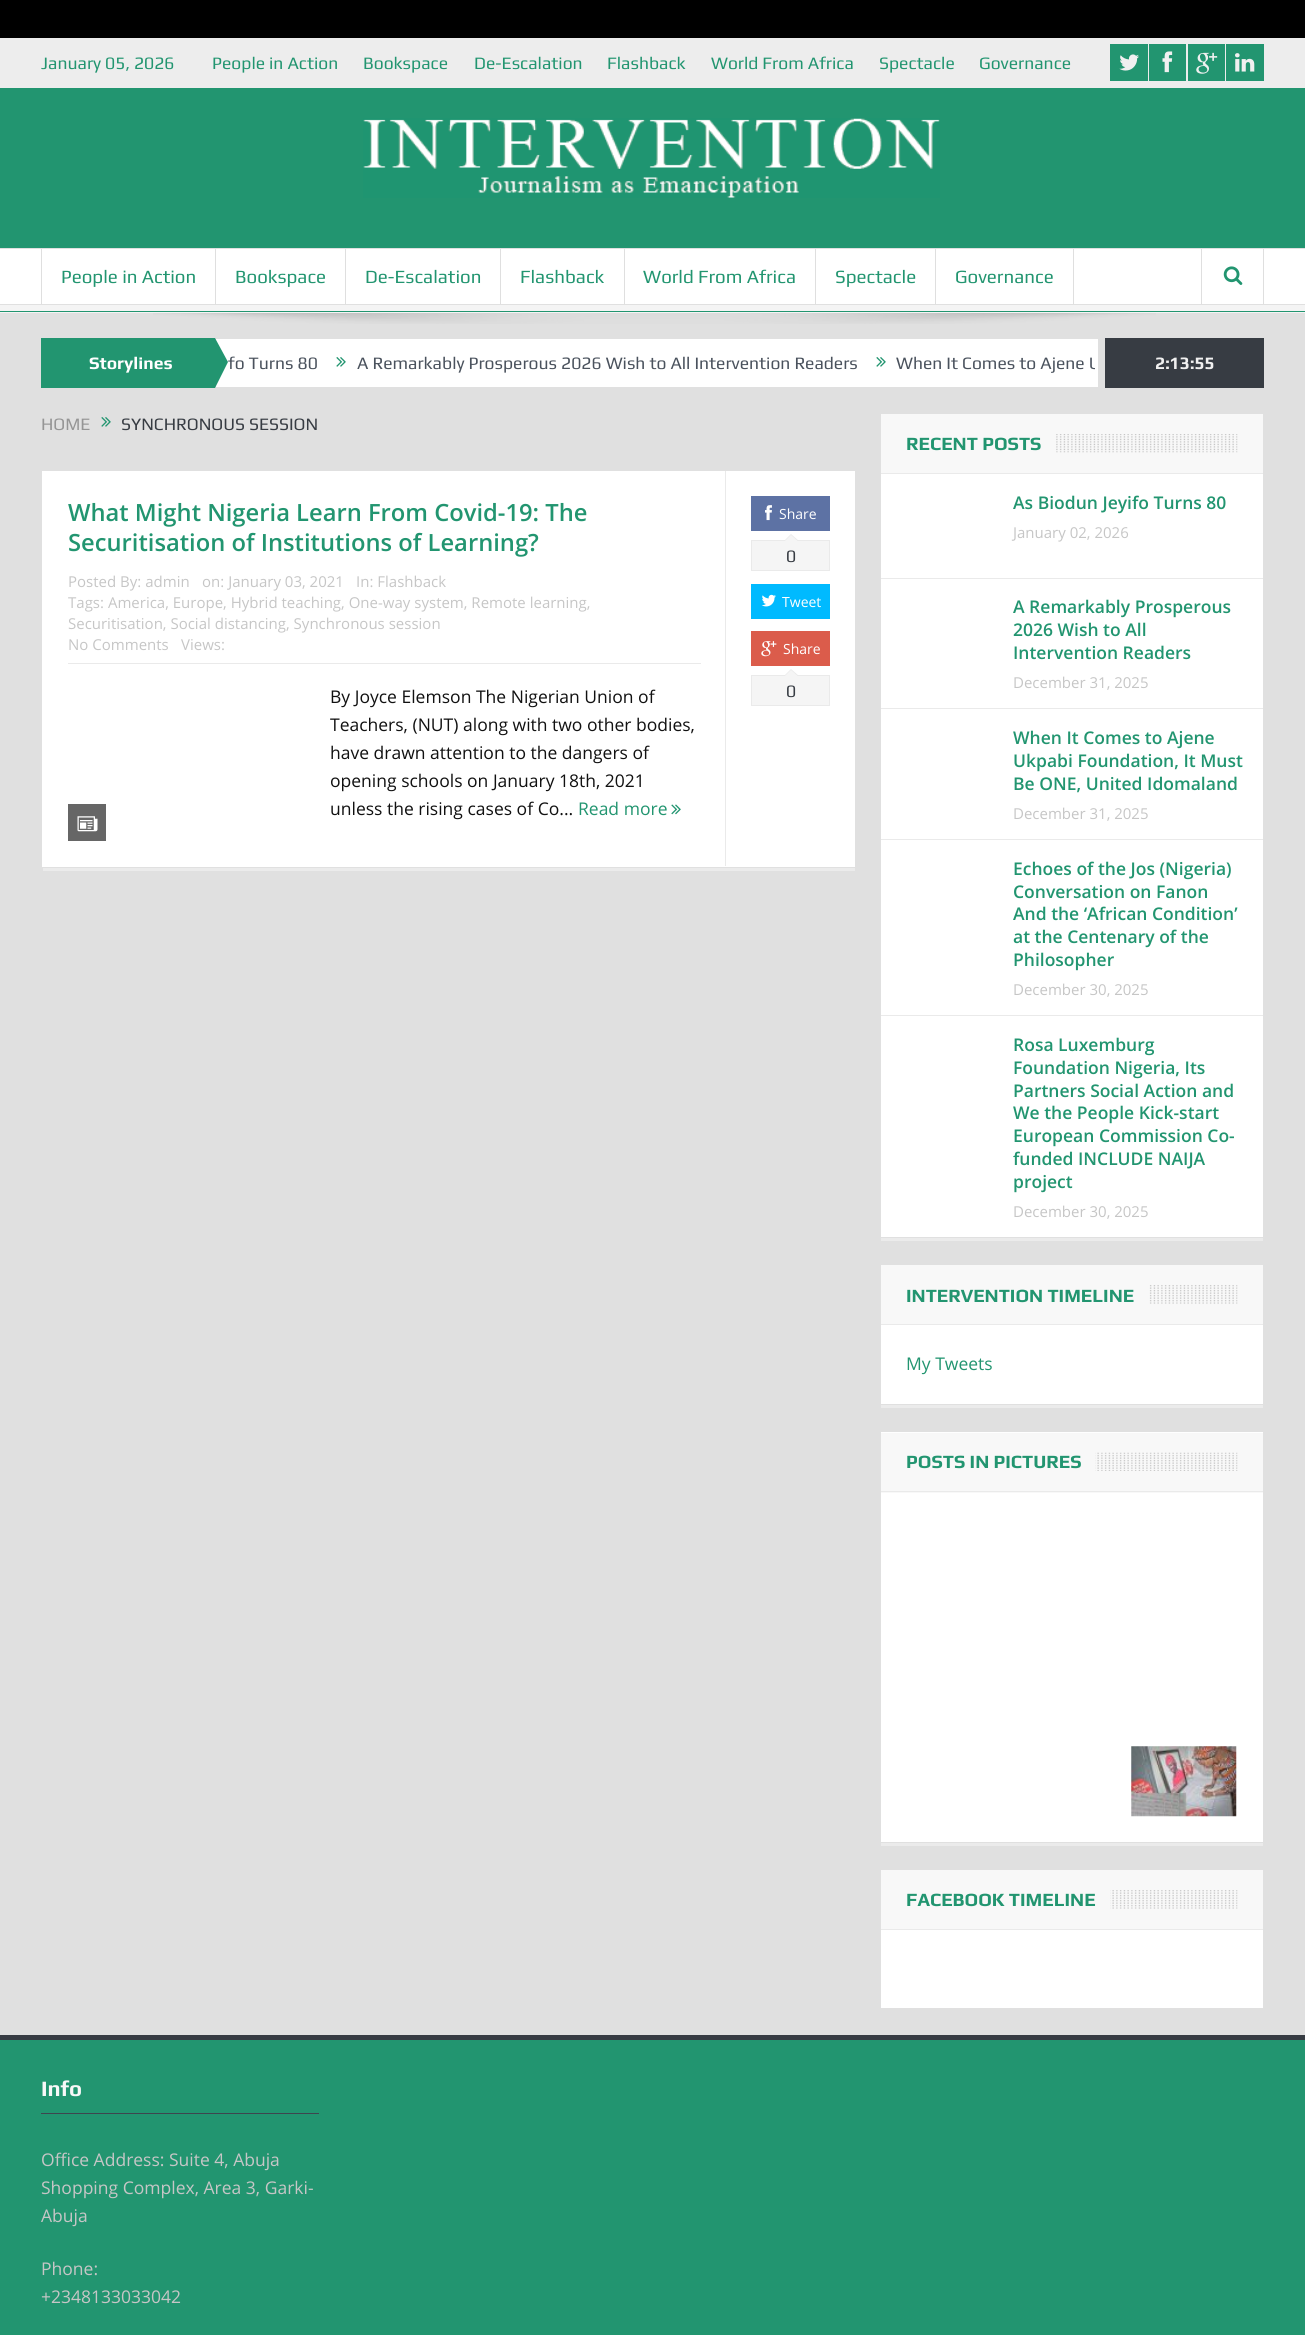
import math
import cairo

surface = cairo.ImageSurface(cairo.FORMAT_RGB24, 1305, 2335)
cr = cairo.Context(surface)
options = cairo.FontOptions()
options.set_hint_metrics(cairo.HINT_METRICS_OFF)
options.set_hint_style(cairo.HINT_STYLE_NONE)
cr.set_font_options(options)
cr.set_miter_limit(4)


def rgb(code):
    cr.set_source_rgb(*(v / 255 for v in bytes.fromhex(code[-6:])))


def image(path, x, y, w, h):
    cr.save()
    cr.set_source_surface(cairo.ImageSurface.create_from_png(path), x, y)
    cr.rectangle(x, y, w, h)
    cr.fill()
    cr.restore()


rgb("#e0e0e0")
cr.paint()
for x, y, w, h, color in [
    (0, 0, 1305, 38, "#000000"),
    (0, 38, 1305, 50, "#ededed"),
    (1110, 44, 38, 37, "#229570"),
]:
    rgb(color)
    cr.rectangle(x, y, w, h)
    cr.fill()
image("img/1.png", 1119, 54, 20, 17)
cr.rectangle(1149, 44, 37, 37)
cr.fill()
image("img/2.png", 1162, 51, 11, 22)
cr.rectangle(1188, 44, 37, 37)
cr.fill()
image("img/3.png", 1196, 52, 22, 22)
cr.rectangle(1226, 44, 38, 37)
cr.fill()
image("img/4.png", 1235, 53, 20, 19)
cr.rectangle(0, 88, 1305, 160)
cr.fill()
image("img/5.png", 363, 118, 577, 80)
for x, y, w, h, color in [
    (0, 305, 1305, 8, "#f4f4f4"),
    (0, 311, 1305, 1, "#229570"),
    (0, 249, 1305, 55, "#ffffff"),
    (41, 249, 1, 55, "#dfdfdf"),
    (215, 249, 1, 55, "#dfdfdf"),
    (345, 249, 1, 55, "#dfdfdf"),
    (500, 249, 1, 55, "#dfdfdf"),
    (624, 249, 1, 55, "#dfdfdf"),
    (815, 249, 1, 55, "#dfdfdf"),
    (1073, 249, 1, 55, "#dfdfdf"),
    (935, 249, 1, 55, "#dfdfdf"),
    (1263, 249, 1, 55, "#dfdfdf"),
    (1201, 249, 1, 55, "#dfdfdf"),
]:
    rgb(color)
    cr.rectangle(x, y, w, h)
    cr.fill()
image("img/6.png", 1223, 266, 20, 19)
image("img/7.png", 153, 313, 1003, 11)
rgb("#229570")
cr.rectangle(41, 338, 174, 50)
cr.fill()
rgb("#ffffff")
cr.rectangle(216, 339, 882, 48)
cr.fill()
rgb("#229570")
cr.new_path()
cr.move_to(215, 388)
cr.line_to(215, 338)
cr.line_to(228, 362)
cr.close_path()
cr.fill()
image("img/8.png", 336, 357, 10, 10)
image("img/8.png", 876, 357, 10, 10)
rgb("#373c43")
cr.rectangle(1105, 338, 159, 50)
cr.fill()
image("img/9.png", 101, 417, 10, 10)
for x, y, w, h, color in [
    (42, 471, 813, 396, "#ffffff"),
    (68, 663, 633, 1, "#eaeaea"),
    (68, 804, 38, 37, "#666666"),
]:
    rgb(color)
    cr.rectangle(x, y, w, h)
    cr.fill()
image("img/10.png", 77, 816, 21, 16)
image("img/11.png", 671, 804, 10, 11)
rgb("#eaeaea")
cr.rectangle(725, 471, 1, 395)
cr.fill()
rgb("#5d72a4")
cr.rectangle(751, 496, 79, 35)
cr.fill()
image("img/12.png", 765, 505, 7, 16)
rgb("#f5f5f5")
cr.rectangle(751.5, 540.5, 78, 30)
cr.fill_preserve()
rgb("#eaeaea")
cr.set_line_width(1)
cr.stroke()
cr.new_path()
cr.move_to(799, 541)
cr.line_to(784, 541)
cr.line_to(791, 534)
cr.close_path()
cr.fill()
rgb("#f5f5f5")
cr.new_path()
cr.move_to(797.5, 541)
cr.line_to(785, 541)
cr.line_to(791, 535)
cr.close_path()
cr.fill()
rgb("#00baff")
cr.rectangle(751, 584, 79, 35)
cr.fill()
image("img/13.png", 761, 594, 15, 13)
rgb("#db5c4b")
cr.rectangle(751, 631, 79, 35)
cr.fill()
image("img/14.png", 761, 641, 16, 16)
rgb("#f5f5f5")
cr.rectangle(751.5, 675.5, 78, 30)
cr.fill_preserve()
rgb("#eaeaea")
cr.stroke()
cr.new_path()
cr.move_to(799, 676)
cr.line_to(784, 676)
cr.line_to(791, 669)
cr.close_path()
cr.fill()
rgb("#f5f5f5")
cr.new_path()
cr.move_to(797.5, 676)
cr.line_to(785, 676)
cr.line_to(791, 670)
cr.close_path()
cr.fill()
for x, y, w, h, color in [
    (43, 868, 812, 3, "#ebebeb"),
    (881, 474, 382, 763, "#ffffff"),
    (881, 414, 382, 59, "#f8f8f8"),
    (881, 473, 382, 1, "#eaeaea"),
]:
    rgb(color)
    cr.rectangle(x, y, w, h)
    cr.fill()
image("img/15.png", 1056, 434, 182, 19)
for x, y, w, h, color in [
    (881, 578, 382, 1, "#eaeaea"),
    (881, 708, 382, 1, "#eaeaea"),
    (881, 839, 382, 1, "#eaeaea"),
    (881, 1015, 382, 1, "#eaeaea"),
    (881, 1238, 382, 3, "#ebebeb"),
    (881, 1325, 382, 79, "#ffffff"),
    (881, 1265, 382, 59, "#f8f8f8"),
    (881, 1324, 382, 1, "#eaeaea"),
]:
    rgb(color)
    cr.rectangle(x, y, w, h)
    cr.fill()
image("img/16.png", 1149, 1285, 89, 19)
for x, y, w, h, color in [
    (881, 1405, 382, 3, "#ebebeb"),
    (881, 1432, 382, 410, "#ffffff"),
    (881, 1433, 382, 60, "#f8f8f8"),
    (881, 1491, 382, 1, "#eaeaea"),
]:
    rgb(color)
    cr.rectangle(x, y, w, h)
    cr.fill()
image("img/17.png", 1095, 1452, 143, 19)
image("img/18.png", 1131, 1746, 106, 71)
for x, y, w, h, color in [
    (881, 1843, 382, 3, "#ebebeb"),
    (881, 1930, 382, 78, "#ffffff"),
    (881, 1870, 382, 59, "#f8f8f8"),
    (881, 1929, 382, 1, "#eaeaea"),
]:
    rgb(color)
    cr.rectangle(x, y, w, h)
    cr.fill()
image("img/19.png", 1110, 1890, 128, 19)
for x, y, w, h, color in [
    (0, 2040, 1305, 295, "#229570"),
    (0, 2035, 1305, 5, "#373c43"),
    (41, 2113, 278, 1, "#3e454f"),
]:
    rgb(color)
    cr.rectangle(x, y, w, h)
    cr.fill()
cr.select_font_face("Play")
cr.set_font_size(17.5)
rgb("#229570")
for x, y, s in [
    (41, 69, "January 05, 2026"),
    (212, 69, "People in Action"),
    (363, 69, "Bookspace"),
    (474, 69, "De-Escalation"),
    (607, 69, "Flashback"),
    (711, 69, "World From Africa"),
    (879, 69, "Spectacle"),
    (979, 69, "Governance"),
]:
    cr.move_to(x, y)
    cr.show_text(s)
cr.set_font_size(18.75)
for x, y, s in [
    (61, 283, "People in Action"),
    (235, 283, "Bookspace"),
    (365, 283, "De-Escalation"),
    (520, 283, "Flashback"),
    (643, 283, "World From Africa"),
    (835, 283, "Spectacle"),
    (955, 283, "Governance"),
]:
    cr.move_to(x, y)
    cr.show_text(s)
cr.select_font_face("Play", cairo.FONT_SLANT_NORMAL, cairo.FONT_WEIGHT_BOLD)
cr.set_font_size(17.5)
rgb("#ffffff")
cr.move_to(89, 369)
cr.show_text("Storylines")
cr.select_font_face("Play")
rgb("#4a525d")
cr.move_to(228, 369)
cr.show_text("fo Turns 80")
cr.move_to(357, 369)
cr.show_text("A Remarkably Prosperous 2026 Wish to All Intervention Readers")
cr.save()
cr.rectangle(229, 339, 866, 47)
cr.clip()
cr.move_to(896, 369)
cr.show_text("When It Comes to Ajene U")
cr.restore()
cr.select_font_face("Play", cairo.FONT_SLANT_NORMAL, cairo.FONT_WEIGHT_BOLD)
rgb("#f0f0f0")
cr.move_to(1155, 369)
cr.show_text("2:13:55")
cr.select_font_face("Play")
rgb("#959595")
cr.move_to(41, 430)
cr.show_text("HOME")
rgb("#373c43")
cr.move_to(121, 430)
cr.show_text("SYNCHRONOUS SESSION")
cr.select_font_face("Open Sans SemiBold")
cr.set_font_size(23.75)
rgb("#229570")
cr.move_to(68, 521)
cr.show_text("What Might Nigeria Learn From Covid-19: The")
cr.move_to(68, 551)
cr.show_text("Securitisation of Institutions of Learning?")
cr.select_font_face("Open Sans")
cr.set_font_size(15)
rgb("#c6c6c6")
for x, y, s in [
    (68, 587, "Posted By: admin"),
    (202, 587, "on: January 03, 2021"),
    (356, 587, "In: Flashback"),
    (68, 608, "Tags: America, Europe, Hybrid teaching, One-way system, Remote learning,"),
    (68, 629, "Securitisation, Social distancing, Synchronous session"),
    (68, 650, "No Comments"),
    (181, 650, "Views:"),
]:
    cr.move_to(x, y)
    cr.show_text(s)
cr.set_font_size(17.5)
rgb("#111111")
for x, y, s in [
    (330, 703, "By Joyce Elemson The Nigerian Union of"),
    (330, 731, "Teachers, (NUT) along with two other bodies,"),
    (330, 759, "have drawn attention to the dangers of"),
    (330, 787, "opening schools on January 18th, 2021"),
    (330, 815, "unless the rising cases of Co..."),
]:
    cr.move_to(x, y)
    cr.show_text(s)
rgb("#229570")
cr.move_to(578, 815)
cr.show_text("Read more")
cr.set_font_size(14)
rgb("#ffffff")
cr.move_to(779, 519)
cr.show_text("Share")
cr.select_font_face("Play")
cr.set_font_size(17.5)
rgb("#373c43")
cr.move_to(786, 562)
cr.show_text("0")
cr.select_font_face("Open Sans")
cr.set_font_size(14)
rgb("#ffffff")
cr.move_to(782, 607)
cr.show_text("Tweet")
cr.move_to(783, 654)
cr.show_text("Share")
cr.select_font_face("Play")
cr.set_font_size(17.5)
rgb("#373c43")
cr.move_to(786, 697)
cr.show_text("0")
cr.select_font_face("Play", cairo.FONT_SLANT_NORMAL, cairo.FONT_WEIGHT_BOLD)
cr.set_font_size(18.75)
rgb("#229570")
cr.move_to(906, 450)
cr.show_text("RECENT POSTS")
cr.select_font_face("Open Sans SemiBold")
cr.set_font_size(17.5)
cr.move_to(1013, 509)
cr.show_text("As Biodun Jeyifo Turns 80")
cr.select_font_face("Open Sans")
cr.set_font_size(15)
rgb("#c6c6c6")
cr.move_to(1013, 538)
cr.show_text("January 02, 2026")
cr.select_font_face("Open Sans SemiBold")
cr.set_font_size(17.5)
rgb("#229570")
for x, y, s in [
    (1013, 613, "A Remarkably Prosperous"),
    (1013, 636, "2026 Wish to All"),
    (1013, 659, "Intervention Readers"),
]:
    cr.move_to(x, y)
    cr.show_text(s)
cr.select_font_face("Open Sans")
cr.set_font_size(15)
rgb("#c6c6c6")
cr.move_to(1013, 688)
cr.show_text("December 31, 2025")
cr.select_font_face("Open Sans SemiBold")
cr.set_font_size(17.5)
rgb("#229570")
for x, y, s in [
    (1013, 744, "When It Comes to Ajene"),
    (1013, 767, "Ukpabi Foundation, It Must"),
    (1013, 790, "Be ONE, United Idomaland"),
]:
    cr.move_to(x, y)
    cr.show_text(s)
cr.select_font_face("Open Sans")
cr.set_font_size(15)
rgb("#c6c6c6")
cr.move_to(1013, 819)
cr.show_text("December 31, 2025")
cr.select_font_face("Open Sans SemiBold")
cr.set_font_size(17.5)
rgb("#229570")
for x, y, s in [
    (1013, 875, "Echoes of the Jos (Nigeria)"),
    (1013, 898, "Conversation on Fanon"),
    (1013, 920, "And the ‘African Condition’"),
    (1013, 943, "at the Centenary of the"),
    (1013, 966, "Philosopher"),
]:
    cr.move_to(x, y)
    cr.show_text(s)
cr.select_font_face("Open Sans")
cr.set_font_size(15)
rgb("#c6c6c6")
cr.move_to(1013, 995)
cr.show_text("December 30, 2025")
cr.select_font_face("Open Sans SemiBold")
cr.set_font_size(17.5)
rgb("#229570")
for x, y, s in [
    (1013, 1051, "Rosa Luxemburg"),
    (1013, 1074, "Foundation Nigeria, Its"),
    (1013, 1097, "Partners Social Action and"),
    (1013, 1119, "We the People Kick-start"),
    (1013, 1142, "European Commission Co-"),
    (1013, 1165, "funded INCLUDE NAIJA"),
    (1013, 1188, "project"),
]:
    cr.move_to(x, y)
    cr.show_text(s)
cr.select_font_face("Open Sans")
cr.set_font_size(15)
rgb("#c6c6c6")
cr.move_to(1013, 1217)
cr.show_text("December 30, 2025")
cr.select_font_face("Play", cairo.FONT_SLANT_NORMAL, cairo.FONT_WEIGHT_BOLD)
cr.set_font_size(18.75)
rgb("#229570")
cr.move_to(906, 1302)
cr.show_text("INTERVENTION TIMELINE")
cr.select_font_face("Open Sans")
cr.set_font_size(17.5)
cr.move_to(906, 1370)
cr.show_text("My Tweets")
cr.select_font_face("Play", cairo.FONT_SLANT_NORMAL, cairo.FONT_WEIGHT_BOLD)
cr.set_font_size(18.75)
cr.move_to(906, 1468)
cr.show_text("POSTS IN PICTURES")
cr.move_to(906, 1906)
cr.show_text("FACEBOOK TIMELINE")
cr.set_font_size(22)
rgb("#f8f8f8")
cr.move_to(41, 2096)
cr.show_text("Info")
cr.select_font_face("Open Sans")
cr.set_font_size(17.5)
rgb("#c6c6c6")
for x, y, s in [
    (41, 2166, "Office Address: Suite 4, Abuja"),
    (41, 2194, "Shopping Complex, Area 3, Garki-"),
    (41, 2222, "Abuja"),
    (41, 2275, "Phone:"),
    (41, 2303, "+2348133033042"),
]:
    cr.move_to(x, y)
    cr.show_text(s)
surface.write_to_png("page.png")
